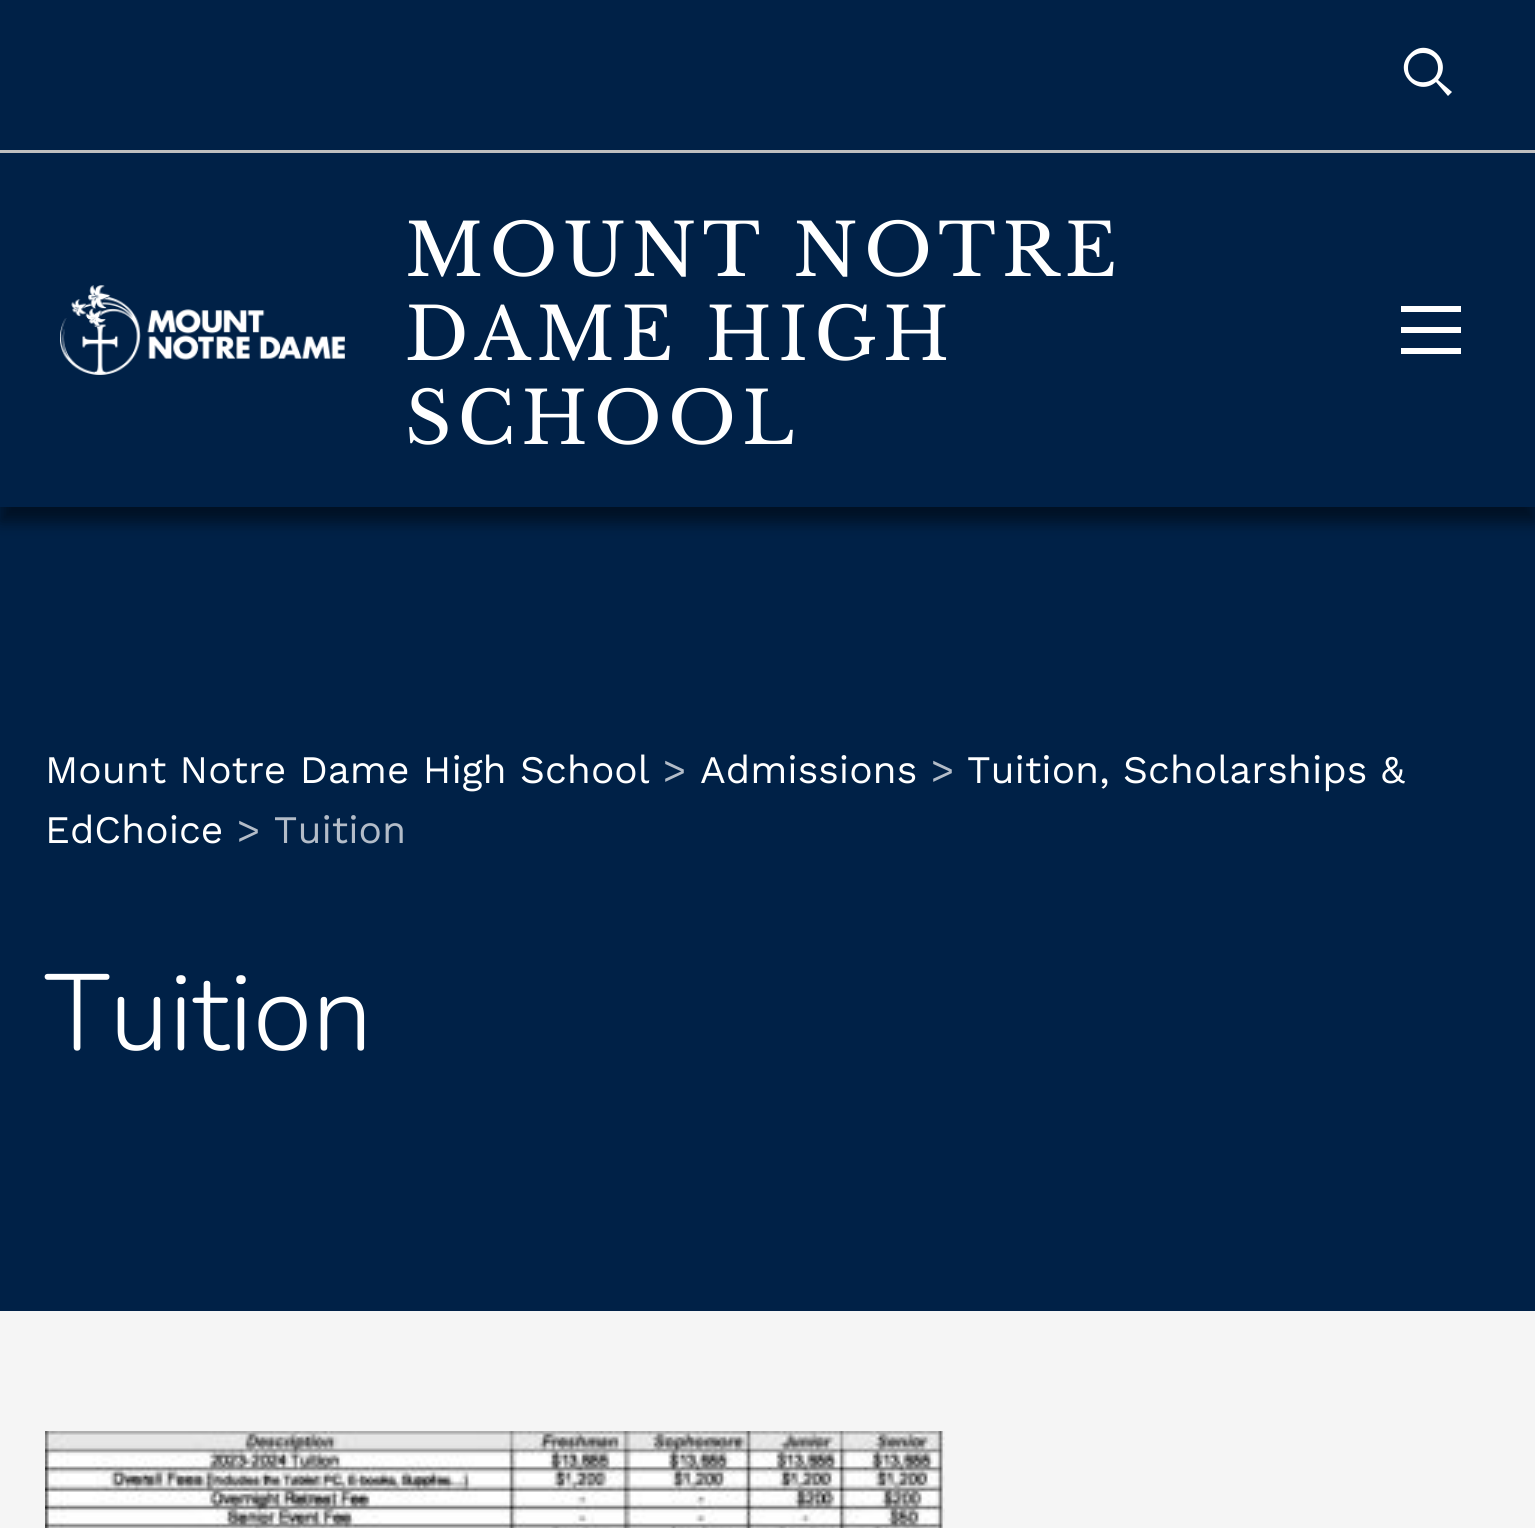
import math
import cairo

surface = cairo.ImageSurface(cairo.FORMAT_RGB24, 1535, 1528)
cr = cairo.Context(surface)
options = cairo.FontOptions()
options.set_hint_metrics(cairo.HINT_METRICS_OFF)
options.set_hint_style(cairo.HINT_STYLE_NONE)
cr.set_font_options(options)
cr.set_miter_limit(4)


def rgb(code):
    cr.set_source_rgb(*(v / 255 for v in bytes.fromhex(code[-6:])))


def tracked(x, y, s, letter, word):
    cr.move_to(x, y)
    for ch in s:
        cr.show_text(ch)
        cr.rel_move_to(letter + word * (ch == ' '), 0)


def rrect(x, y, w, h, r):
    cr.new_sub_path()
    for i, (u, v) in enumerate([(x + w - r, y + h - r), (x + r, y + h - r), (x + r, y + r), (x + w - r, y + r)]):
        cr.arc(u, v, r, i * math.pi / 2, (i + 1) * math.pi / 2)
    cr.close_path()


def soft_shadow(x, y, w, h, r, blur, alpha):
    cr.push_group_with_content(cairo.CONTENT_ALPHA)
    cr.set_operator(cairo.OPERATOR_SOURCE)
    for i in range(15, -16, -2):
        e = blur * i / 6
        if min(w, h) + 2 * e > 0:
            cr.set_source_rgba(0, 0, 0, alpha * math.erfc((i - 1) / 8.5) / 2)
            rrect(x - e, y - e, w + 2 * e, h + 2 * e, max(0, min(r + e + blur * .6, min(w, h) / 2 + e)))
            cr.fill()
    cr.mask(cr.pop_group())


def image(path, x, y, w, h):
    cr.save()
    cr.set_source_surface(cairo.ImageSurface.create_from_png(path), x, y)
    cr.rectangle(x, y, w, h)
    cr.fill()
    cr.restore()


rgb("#f5f5f5")
cr.paint()
rgb("#002147")
cr.rectangle(0, 507, 1535, 804)
cr.fill()
rgb("#000000")
soft_shadow(0, 15, 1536, 507, 0, 7.5, 0.5)
rgb("#002147")
cr.rectangle(0, 0, 1535, 150)
cr.fill()
rgb("#bfbfbf")
cr.rectangle(0, 150, 1535, 3)
cr.fill()
rgb("#ffffff")
cr.new_path()
cr.move_to(1452, 92)
cr.line_to(1438, 80)
cr.curve_to(1454, 61, 1427, 36, 1410, 54)
cr.curve_to(1392, 71, 1417, 98, 1436, 82)
cr.line_to(1448, 96)
cr.close_path()
cr.move_to(1408, 68)
cr.curve_to(1408, 48, 1438, 48, 1438, 68)
cr.curve_to(1438, 87, 1408, 87, 1408, 68)
cr.close_path()
cr.fill()
rgb("#002147")
cr.rectangle(0, 153, 1535, 354)
cr.fill()
image("img/1.png", 60, 285, 285, 90)
for x, y, w, h, color in [
    (1401, 327, 60, 6, "#ffffff"),
    (1401, 306, 60, 6, "#ffffff"),
    (1401, 348, 60, 6, "#ffffff"),
]:
    rgb(color)
    cr.rectangle(x, y, w, h)
    cr.fill()
image("img/2.png", 45, 1431, 900, 97)
cr.select_font_face("Libre Baskerville")
cr.set_font_size(72)
for x, y, s in [
    (405, 276, "MOUNT NOTRE"),
    (405, 360, "DAME HIGH"),
    (405, 444, "SCHOOL"),
]:
    tracked(x, y, s, 6, 0)
cr.select_font_face("Work Sans")
cr.set_font_size(39)
cr.move_to(45, 783)
cr.show_text("Mount Notre Dame High School")
rgb("#b3bcc8")
cr.move_to(663, 783)
cr.show_text(">")
rgb("#ffffff")
cr.move_to(700, 783)
cr.show_text("Admissions")
rgb("#b3bcc8")
cr.move_to(931, 783)
cr.show_text(">")
rgb("#ffffff")
cr.move_to(967, 783)
cr.show_text("Tuition, Scholarships &")
cr.move_to(45, 843)
cr.show_text("EdChoice")
rgb("#b3bcc8")
cr.move_to(237, 843)
cr.show_text("> Tuition")
cr.select_font_face("Nunito Light")
cr.set_font_size(108)
rgb("#ffffff")
cr.move_to(45, 1050)
cr.show_text("Tuition")
surface.write_to_png("page.png")
